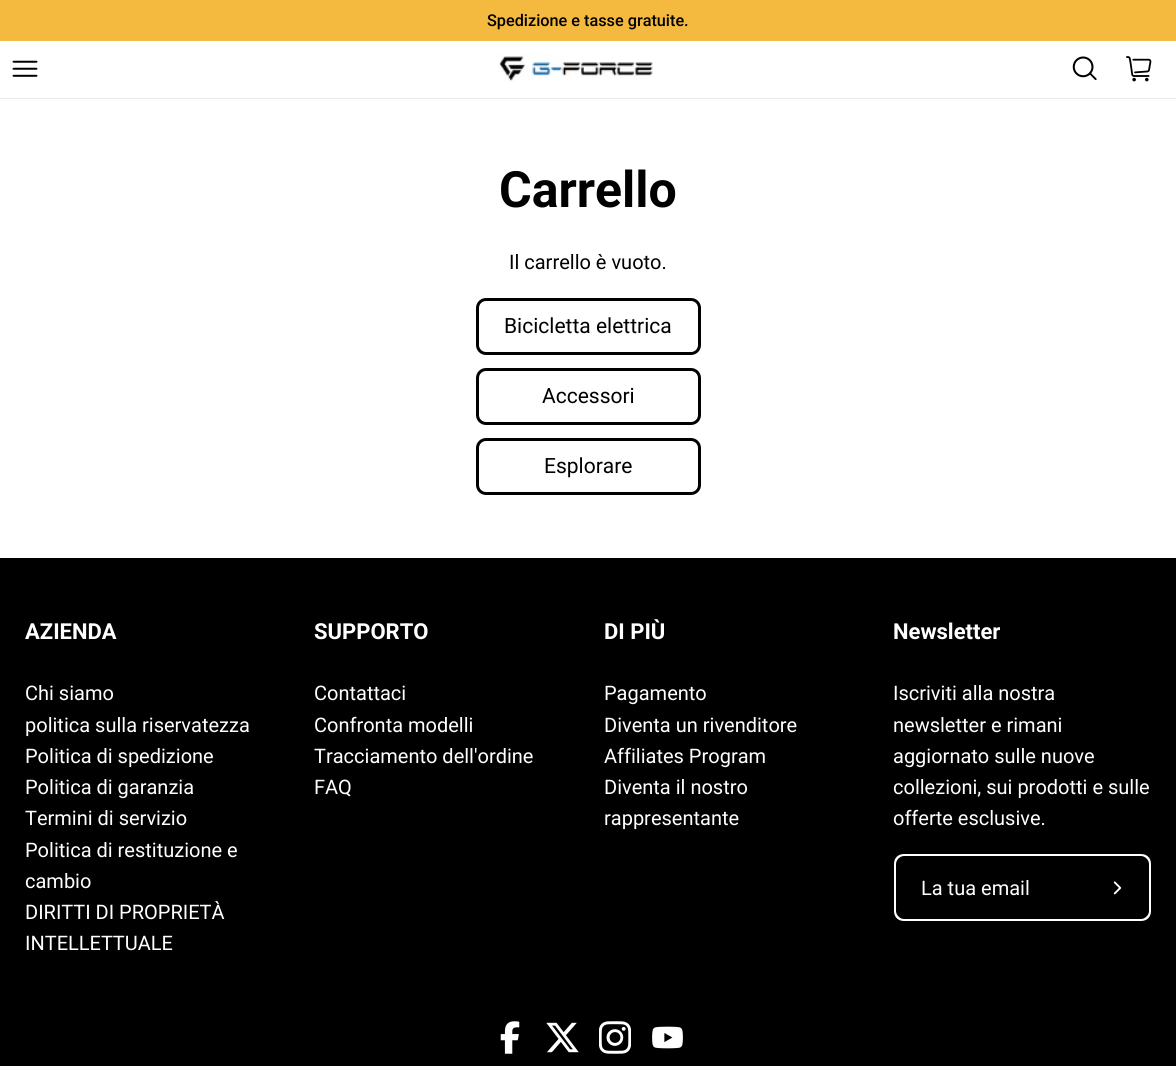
import math
import cairo

surface = cairo.ImageSurface(cairo.FORMAT_RGB24, 1176, 1066)
cr = cairo.Context(surface)
options = cairo.FontOptions()
options.set_hint_metrics(cairo.HINT_METRICS_OFF)
options.set_hint_style(cairo.HINT_STYLE_NONE)
cr.set_font_options(options)
cr.set_miter_limit(4)


def rgb(code):
    cr.set_source_rgb(*(v / 255 for v in bytes.fromhex(code[-6:])))


def rrect(x, y, w, h, r):
    cr.new_sub_path()
    for i, (u, v) in enumerate([(x + w - r, y + h - r), (x + r, y + h - r), (x + r, y + r), (x + w - r, y + r)]):
        cr.arc(u, v, r, i * math.pi / 2, (i + 1) * math.pi / 2)
    cr.close_path()


def image(path, x, y, w, h):
    cr.save()
    cr.set_source_surface(cairo.ImageSurface.create_from_png(path), x, y)
    cr.rectangle(x, y, w, h)
    cr.fill()
    cr.restore()


rgb("#ffffff")
cr.paint()
rgb("#f4ba40")
cr.rectangle(0, 0, 1176, 41)
cr.fill()
rgb("#eaeaea")
cr.rectangle(0, 98, 1176, 1)
cr.fill()
image("img/1.png", 499, 54, 154, 28)
image("img/2.png", 12, 60, 26, 17)
image("img/3.png", 1072, 56, 25, 25)
image("img/4.png", 1126, 56, 26, 26)
rrect(477.5, 299.5, 222, 54, 8.5)
rgb("#000000")
cr.set_line_width(3)
cr.stroke()
rrect(477.5, 369.5, 222, 54, 8.5)
cr.stroke()
rrect(477.5, 439.5, 222, 54, 8.5)
cr.stroke()
cr.rectangle(0, 558, 1176, 508)
cr.fill()
rgb("#ffffff")
cr.set_fill_rule(cairo.FILL_RULE_EVEN_ODD)
cr.new_path()
cr.move_to(904, 854)
cr.line_to(1086, 854)
cr.line_to(1086, 921)
cr.line_to(904, 921)
cr.curve_to(898, 921, 894, 917, 894, 911)
cr.line_to(894, 864)
cr.curve_to(894, 858, 898, 854, 904, 854)
cr.close_path()
cr.move_to(904, 856)
cr.line_to(1086, 856)
cr.line_to(1086, 919)
cr.line_to(904, 919)
cr.curve_to(900, 919, 896, 915, 896, 911)
cr.line_to(896, 864)
cr.curve_to(896, 860, 900, 856, 904, 856)
cr.close_path()
cr.fill()
cr.new_path()
cr.move_to(1086, 854)
cr.line_to(1141, 854)
cr.curve_to(1147, 854, 1151, 858, 1151, 864)
cr.line_to(1151, 911)
cr.curve_to(1151, 917, 1147, 921, 1141, 921)
cr.line_to(1086, 921)
cr.close_path()
cr.move_to(1086, 856)
cr.line_to(1141, 856)
cr.curve_to(1145, 856, 1149, 860, 1149, 864)
cr.line_to(1149, 911)
cr.curve_to(1149, 915, 1145, 919, 1141, 919)
cr.line_to(1086, 919)
cr.close_path()
cr.fill()
image("img/5.png", 1113, 881, 9, 14)
image("img/6.png", 500, 1021, 20, 33)
image("img/7.png", 546, 1022, 33, 31)
image("img/8.png", 599, 1021, 32, 33)
image("img/9.png", 652, 1026, 31, 23)
cr.select_font_face("Roboto Medium")
cr.set_font_size(16.25)
rgb("#000000")
cr.move_to(487, 26)
cr.show_text("Spedizione e tasse gratuite.")
cr.select_font_face("Roboto", cairo.FONT_SLANT_NORMAL, cairo.FONT_WEIGHT_BOLD)
cr.set_font_size(50)
cr.move_to(499, 207)
cr.show_text("Carrello")
cr.select_font_face("Roboto")
cr.set_font_size(20)
cr.move_to(509, 269)
cr.show_text("Il carrello è vuoto.")
cr.set_font_size(21)
for x, y, s in [
    (504, 333, "Bicicletta elettrica"),
    (542, 403, "Accessori"),
    (544, 473, "Esplorare"),
]:
    cr.move_to(x, y)
    cr.show_text(s)
cr.select_font_face("Roboto", cairo.FONT_SLANT_NORMAL, cairo.FONT_WEIGHT_BOLD)
cr.set_font_size(22)
rgb("#ffffff")
cr.move_to(25, 639)
cr.show_text("AZIENDA")
cr.select_font_face("Roboto")
cr.set_font_size(20)
for x, y, s in [
    (25, 700, "Chi siamo"),
    (25, 732, "politica sulla riservatezza"),
    (25, 763, "Politica di spedizione"),
    (25, 794, "Politica di garanzia"),
    (25, 825, "Termini di servizio"),
    (25, 857, "Politica di restituzione e"),
    (25, 888, "cambio"),
    (25, 919, "DIRITTI DI PROPRIETÀ"),
    (25, 950, "INTELLETTUALE"),
]:
    cr.move_to(x, y)
    cr.show_text(s)
cr.select_font_face("Roboto", cairo.FONT_SLANT_NORMAL, cairo.FONT_WEIGHT_BOLD)
cr.set_font_size(22)
cr.move_to(314, 639)
cr.show_text("SUPPORTO")
cr.select_font_face("Roboto")
cr.set_font_size(20)
for x, y, s in [
    (314, 700, "Contattaci"),
    (314, 732, "Confronta modelli"),
    (314, 763, "Tracciamento dell'ordine"),
    (314, 794, "FAQ"),
]:
    cr.move_to(x, y)
    cr.show_text(s)
cr.select_font_face("Roboto", cairo.FONT_SLANT_NORMAL, cairo.FONT_WEIGHT_BOLD)
cr.set_font_size(22)
cr.move_to(604, 639)
cr.show_text("DI PIÙ")
cr.select_font_face("Roboto")
cr.set_font_size(20)
for x, y, s in [
    (604, 700, "Pagamento"),
    (604, 732, "Diventa un rivenditore"),
    (604, 763, "Affiliates Program"),
    (604, 794, "Diventa il nostro"),
    (604, 825, "rappresentante"),
]:
    cr.move_to(x, y)
    cr.show_text(s)
cr.select_font_face("Roboto", cairo.FONT_SLANT_NORMAL, cairo.FONT_WEIGHT_BOLD)
cr.set_font_size(22)
cr.move_to(893, 639)
cr.show_text("Newsletter")
cr.select_font_face("Roboto")
cr.set_font_size(20)
for x, y, s in [
    (893, 700, "Iscriviti alla nostra"),
    (893, 732, "newsletter e rimani"),
    (893, 763, "aggiornato sulle nuove"),
    (893, 794, "collezioni, sui prodotti e sulle"),
    (893, 825, "offerte esclusive."),
    (921, 895, "La tua email"),
]:
    cr.move_to(x, y)
    cr.show_text(s)
surface.write_to_png("page.png")
